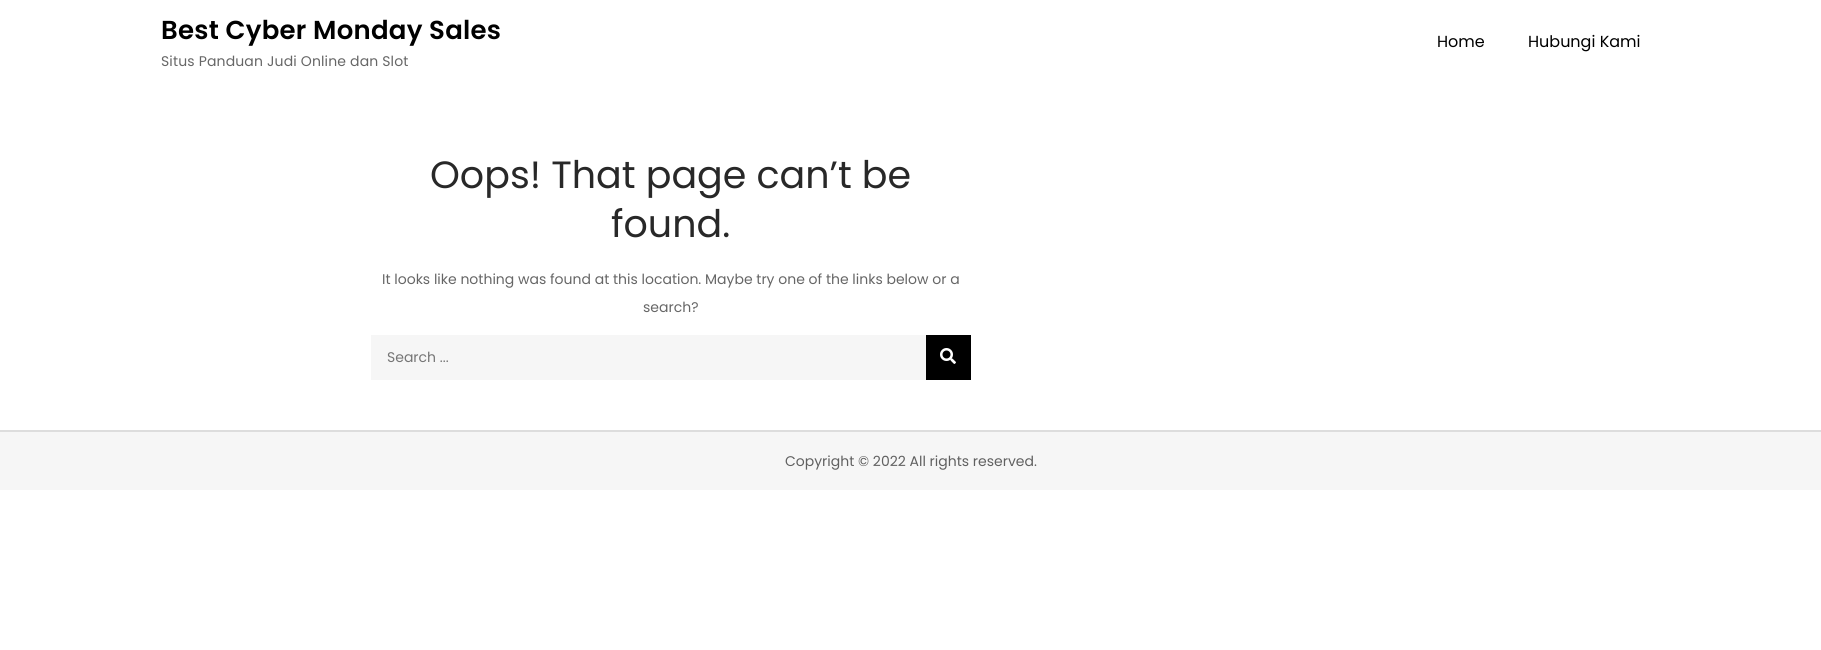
import math
import cairo

surface = cairo.ImageSurface(cairo.FORMAT_RGB24, 1821, 650)
cr = cairo.Context(surface)
options = cairo.FontOptions()
options.set_hint_metrics(cairo.HINT_METRICS_OFF)
options.set_hint_style(cairo.HINT_STYLE_NONE)
cr.set_font_options(options)
cr.set_miter_limit(4)


def rgb(code):
    cr.set_source_rgb(*(v / 255 for v in bytes.fromhex(code[-6:])))


def tracked(x, y, s, letter, word):
    cr.move_to(x, y)
    for ch in s:
        cr.show_text(ch)
        cr.rel_move_to(letter + word * (ch == ' '), 0)


def image(path, x, y, w, h):
    cr.save()
    cr.set_source_surface(cairo.ImageSurface.create_from_png(path), x, y)
    cr.rectangle(x, y, w, h)
    cr.fill()
    cr.restore()


rgb("#ffffff")
cr.paint()
rgb("#f6f6f6")
cr.rectangle(371, 335, 555, 45)
cr.fill()
rgb("#000000")
cr.rectangle(926, 335, 45, 45)
cr.fill()
image("img/1.png", 940, 348, 16, 16)
rgb("#f6f6f6")
cr.rectangle(0, 432, 1821, 58)
cr.fill()
rgb("#dddddd")
cr.rectangle(0, 430, 1821, 2)
cr.fill()
cr.select_font_face("Poppins SemiBold")
cr.set_font_size(26)
rgb("#000000")
tracked(161, 39, "Best Cyber Monday Sales", 0.25, 0)
cr.select_font_face("Poppins")
cr.set_font_size(14)
rgb("#666666")
tracked(161, 66, "Situs Panduan Judi Online dan Slot", 0.15, 0)
cr.set_font_size(16)
rgb("#000000")
cr.move_to(1437, 47)
cr.show_text("Home")
cr.move_to(1528, 47)
cr.show_text("Hubungi Kami")
cr.set_font_size(38)
rgb("#282828")
cr.move_to(430, 188)
cr.show_text("Oops! That page can’t be")
cr.move_to(611, 237)
cr.show_text("found.")
cr.set_font_size(14)
rgb("#666666")
cr.move_to(382, 284)
cr.show_text("It looks like nothing was found at this location. Maybe try one of the links below or a")
cr.move_to(643, 312)
cr.show_text("search?")
rgb("#757575")
cr.move_to(387, 362)
cr.show_text("Search ...")
rgb("#606060")
cr.move_to(785, 466)
cr.show_text("Copyright © 2022 All rights reserved.")
surface.write_to_png("page.png")
